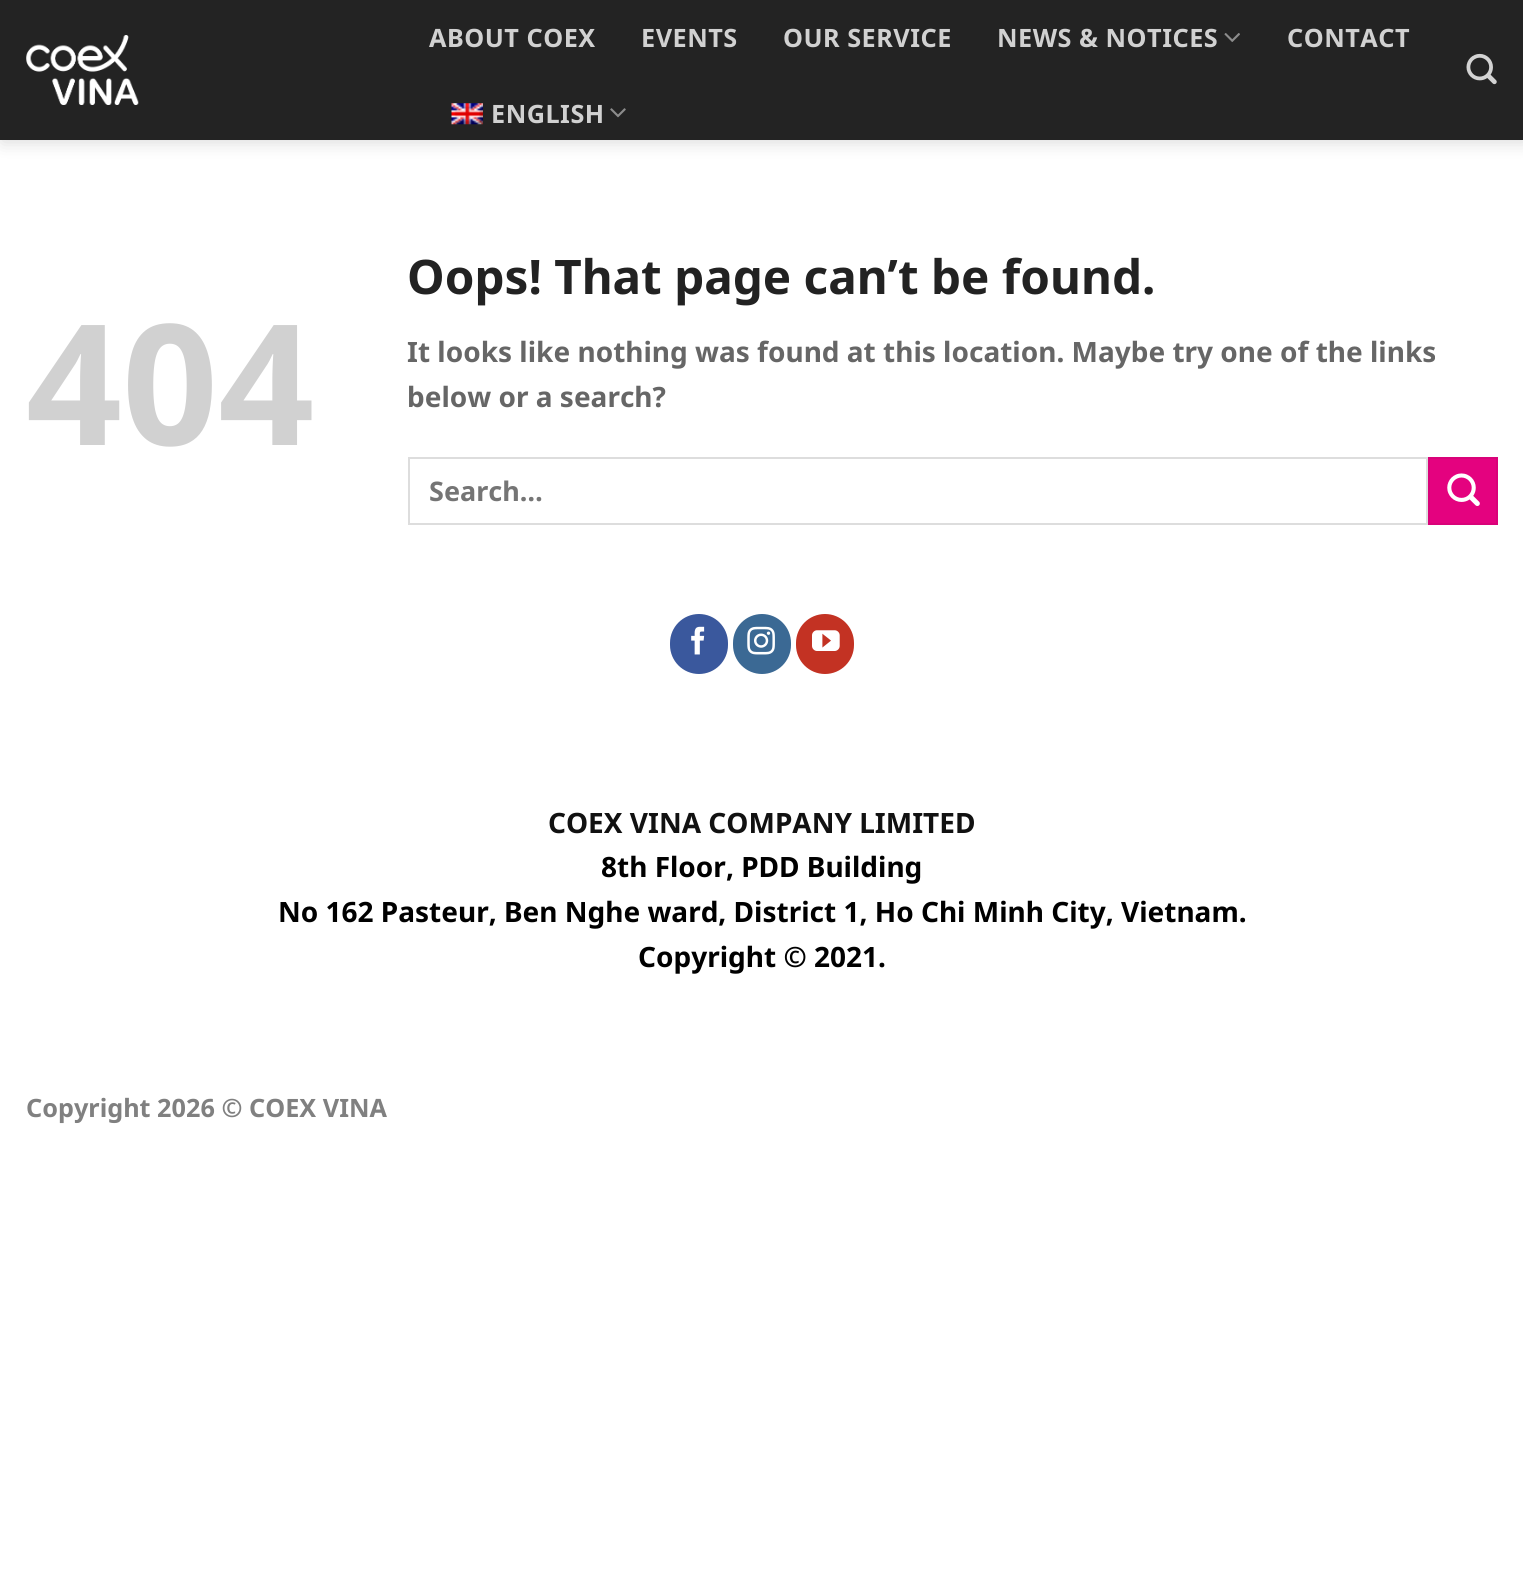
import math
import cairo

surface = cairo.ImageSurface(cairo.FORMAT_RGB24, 1523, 1582)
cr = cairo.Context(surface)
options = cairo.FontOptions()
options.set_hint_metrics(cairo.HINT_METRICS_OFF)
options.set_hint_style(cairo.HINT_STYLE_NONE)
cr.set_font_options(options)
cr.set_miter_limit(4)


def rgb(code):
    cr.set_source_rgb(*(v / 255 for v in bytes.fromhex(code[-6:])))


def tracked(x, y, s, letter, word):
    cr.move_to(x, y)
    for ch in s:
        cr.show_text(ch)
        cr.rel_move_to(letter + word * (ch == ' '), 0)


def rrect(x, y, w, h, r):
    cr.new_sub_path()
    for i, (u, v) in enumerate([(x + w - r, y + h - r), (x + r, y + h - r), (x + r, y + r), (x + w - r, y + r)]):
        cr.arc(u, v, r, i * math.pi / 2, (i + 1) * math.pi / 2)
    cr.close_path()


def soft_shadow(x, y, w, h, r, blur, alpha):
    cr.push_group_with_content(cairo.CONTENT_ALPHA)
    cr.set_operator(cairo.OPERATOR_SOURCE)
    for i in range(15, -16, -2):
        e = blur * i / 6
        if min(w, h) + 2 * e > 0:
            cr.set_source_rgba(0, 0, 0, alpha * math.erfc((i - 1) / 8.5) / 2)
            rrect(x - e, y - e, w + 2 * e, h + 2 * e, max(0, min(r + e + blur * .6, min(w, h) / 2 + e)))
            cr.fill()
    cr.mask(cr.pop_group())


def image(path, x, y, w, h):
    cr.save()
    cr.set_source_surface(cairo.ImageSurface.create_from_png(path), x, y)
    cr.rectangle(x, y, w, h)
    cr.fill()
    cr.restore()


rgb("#ffffff")
cr.paint()
rgb("#000000")
soft_shadow(2, 2, 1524, 140, 0, 9, 0.15)
rgb("#232323")
cr.rectangle(0, 0, 1523, 140)
cr.fill()
image("img/1.png", 26, 35, 113, 70)
image("img/2.png", 1224, 33, 16, 9)
image("img/3.png", 451, 103, 32, 22)
image("img/4.png", 610, 108, 16, 10)
image("img/5.png", 1466, 53, 31, 32)
cr.rectangle(409, 458, 1018, 66)
rgb("#dddddd")
cr.stroke()
rgb("#e4027f")
cr.rectangle(1429, 458, 68, 66)
cr.fill_preserve()
rgb("#d90279")
cr.stroke()
image("img/6.png", 1447, 473, 33, 33)
rgb("#3a589d")
rrect(671, 615, 56, 58, 28)
cr.fill_preserve()
cr.stroke()
image("img/7.png", 691, 626, 14, 29)
rgb("#3b6994")
rrect(734, 615, 56, 58, 28)
cr.fill_preserve()
cr.stroke()
image("img/8.png", 747, 626, 28, 29)
rgb("#c33223")
rrect(797, 615, 56, 58, 28)
cr.fill_preserve()
cr.stroke()
image("img/9.png", 812, 630, 28, 21)
cr.select_font_face("Noto Sans", cairo.FONT_SLANT_NORMAL, cairo.FONT_WEIGHT_BOLD)
cr.set_font_size(25.25)
rgb("#d1d1d1")
for x, y, s in [
    (429, 47, "ABOUT COEX"),
    (641, 47, "EVENTS"),
    (783, 47, "OUR SERVICE"),
    (997, 47, "NEWS & NOTICES"),
    (1287, 47, "CONTACT"),
    (491, 123, "ENGLISH"),
]:
    tracked(x, y, s, 0.5, 0)
cr.set_font_size(168)
cr.move_to(26, 445)
cr.show_text("404")
cr.set_font_size(47.6)
rgb("#222222")
cr.move_to(407, 294)
cr.show_text("Oops! That page can’t be found.")
cr.set_font_size(28)
rgb("#666666")
cr.move_to(407, 362)
cr.show_text("It looks like nothing was found at this location. Maybe try one of the links")
cr.move_to(407, 407)
cr.show_text("below or a search?")
cr.set_font_size(27)
rgb("#757575")
cr.move_to(429, 501)
cr.show_text("Search…")
cr.set_font_size(28)
rgb("#111111")
cr.move_to(548, 833)
cr.show_text("COEX VINA COMPANY LIMITED")
rgb("#000000")
for x, y, s in [
    (601, 877, "8th Floor, PDD Building"),
    (278, 922, "No 162 Pasteur, Ben Nghe ward, District 1, Ho Chi Minh City, Vietnam."),
    (638, 967, "Copyright © 2021."),
]:
    cr.move_to(x, y)
    cr.show_text(s)
cr.set_font_size(25.25)
rgb("#808080")
cr.move_to(26, 1117)
cr.show_text("Copyright 2026 © COEX VINA")
surface.write_to_png("page.png")
